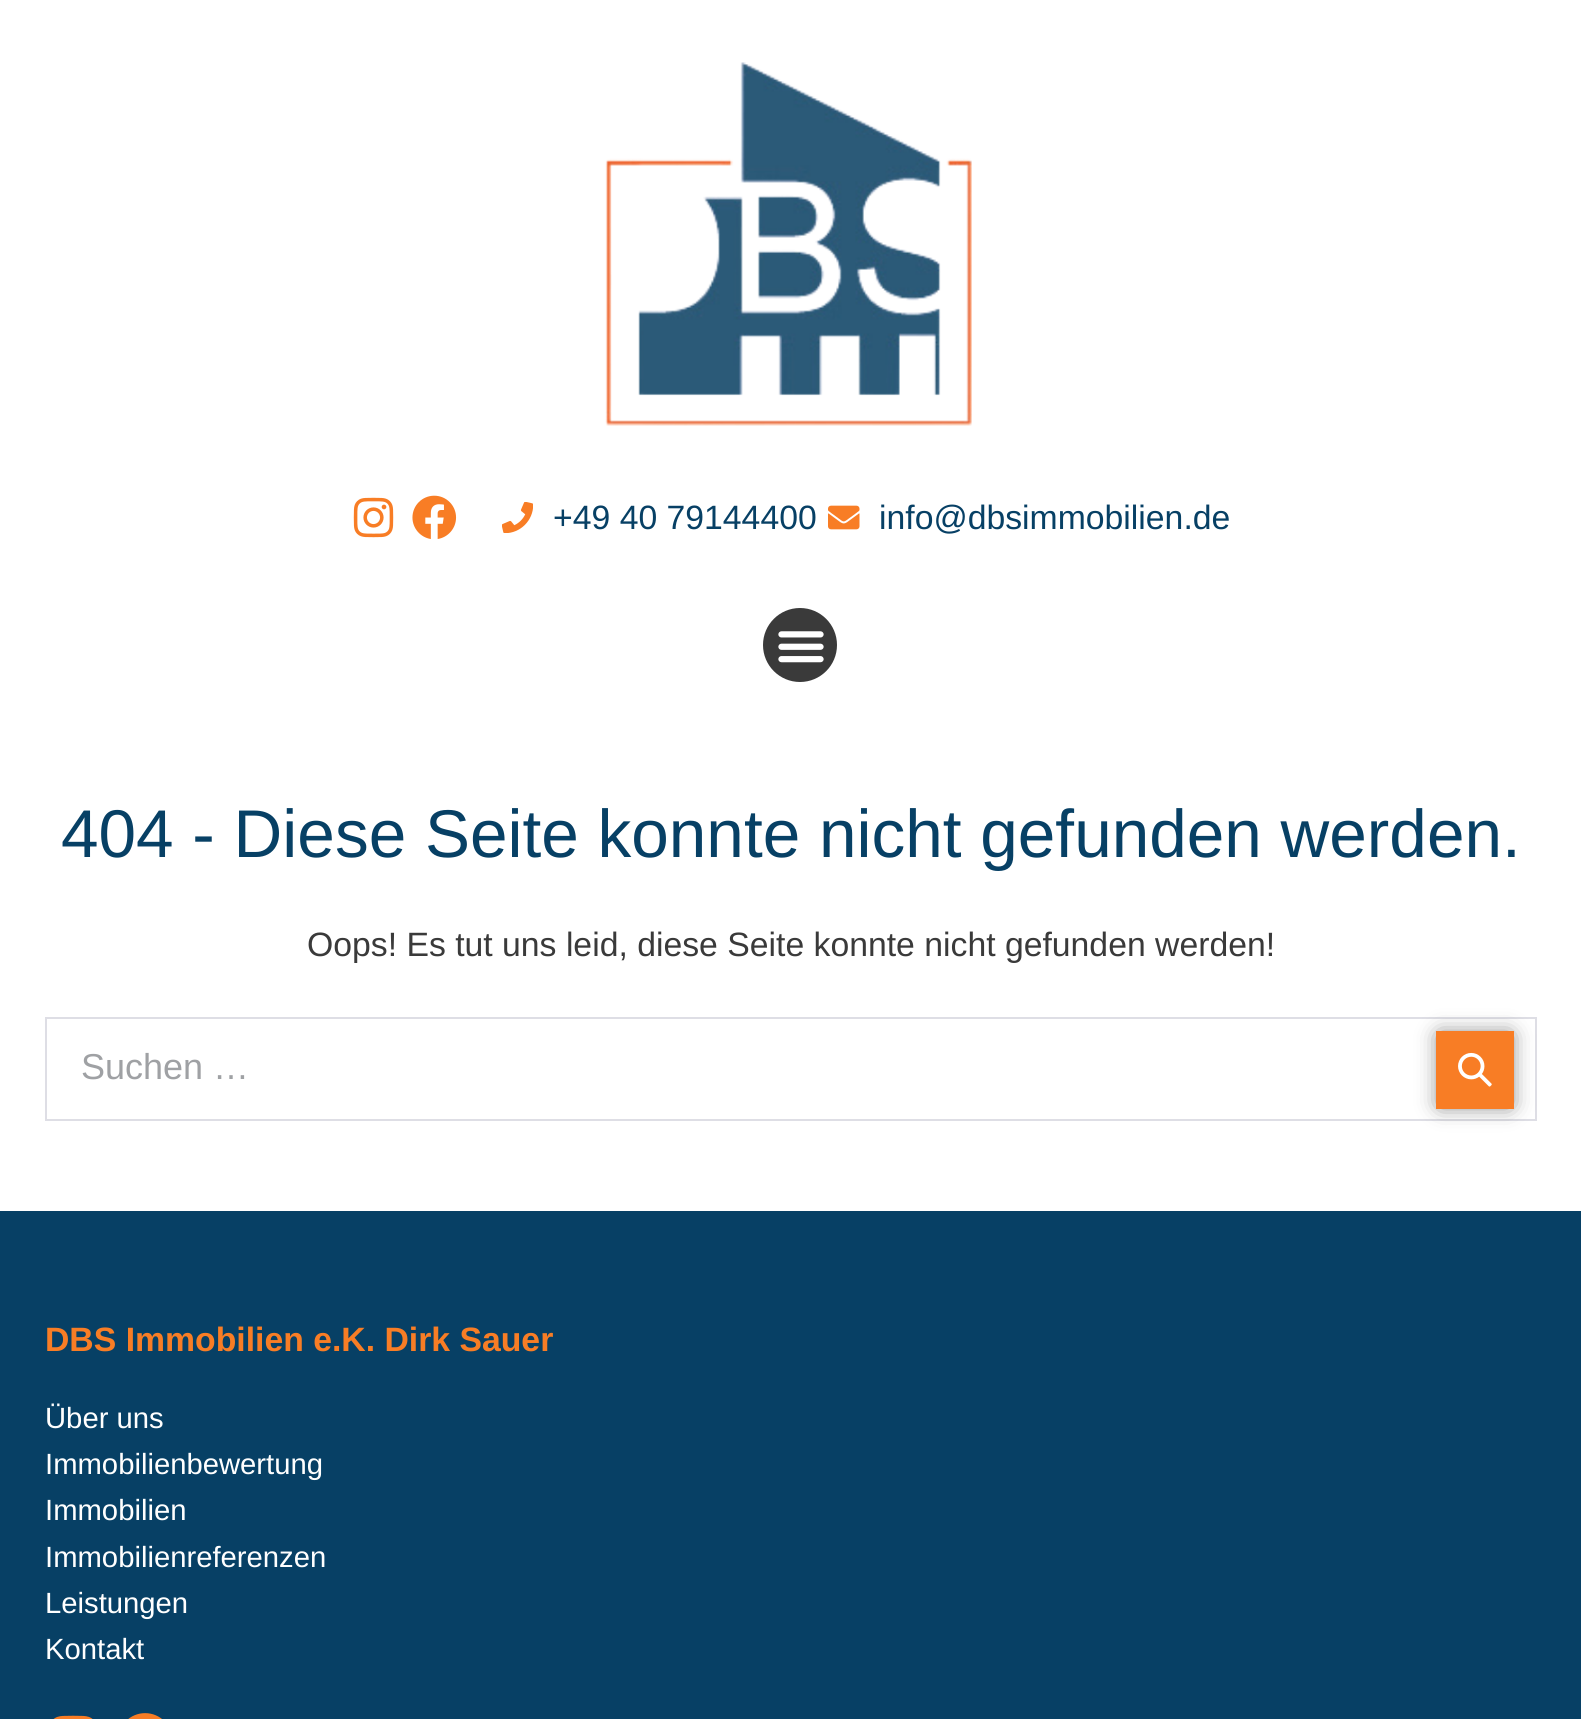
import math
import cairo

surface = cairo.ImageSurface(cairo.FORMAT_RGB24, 1581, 1719)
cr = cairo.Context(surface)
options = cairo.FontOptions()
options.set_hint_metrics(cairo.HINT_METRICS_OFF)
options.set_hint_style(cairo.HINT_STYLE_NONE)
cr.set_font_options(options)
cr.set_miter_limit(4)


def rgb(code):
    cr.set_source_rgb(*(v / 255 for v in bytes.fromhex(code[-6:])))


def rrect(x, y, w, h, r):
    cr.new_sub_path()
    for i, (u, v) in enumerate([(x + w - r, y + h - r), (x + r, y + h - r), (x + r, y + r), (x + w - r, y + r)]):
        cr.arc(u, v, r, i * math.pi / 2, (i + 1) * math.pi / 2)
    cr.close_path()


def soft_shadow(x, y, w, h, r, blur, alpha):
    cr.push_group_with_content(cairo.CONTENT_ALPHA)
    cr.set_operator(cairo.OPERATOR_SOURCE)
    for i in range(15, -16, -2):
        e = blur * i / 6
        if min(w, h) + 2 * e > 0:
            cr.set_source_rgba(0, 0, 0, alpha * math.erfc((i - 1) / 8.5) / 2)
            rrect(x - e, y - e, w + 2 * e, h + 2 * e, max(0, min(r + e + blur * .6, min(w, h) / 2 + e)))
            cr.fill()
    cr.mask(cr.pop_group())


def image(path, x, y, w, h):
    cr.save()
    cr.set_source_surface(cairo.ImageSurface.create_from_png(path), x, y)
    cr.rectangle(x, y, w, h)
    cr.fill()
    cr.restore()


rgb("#ffffff")
cr.paint()
image("img/1.png", 605, 62, 367, 364)
image("img/2.png", 353, 497, 41, 41)
image("img/3.png", 412, 495, 45, 44)
image("img/4.png", 502, 502, 31, 31)
image("img/5.png", 828, 505, 32, 25)
rgb("#3a3a3a")
cr.arc(800, 645, 37, 0, 2 * math.pi)
cr.fill()
image("img/6.png", 778, 631, 46, 32)
cr.rectangle(46, 1018, 1490, 102)
rgb("#dedee5")
cr.stroke()
rgb("#000000")
soft_shadow(1440, 1035, 70, 70, 0, 11, 0.58)
rgb("#f87d25")
cr.rectangle(1436, 1031, 78, 78)
cr.fill()
image("img/7.png", 1458, 1052, 34, 35)
rgb("#074065")
cr.rectangle(0, 1211, 1581, 508)
cr.fill()
image("img/8.png", 53, 1715, 40, 4)
image("img/9.png", 128, 1713, 34, 6)
cr.select_font_face("Liberation Sans")
cr.set_font_size(33.75)
cr.move_to(553, 529)
cr.show_text("+49 40 79144400")
cr.move_to(879, 529)
cr.show_text("info@dbsimmobilien.de")
cr.set_font_size(67.5)
cr.move_to(61, 857)
cr.show_text("404 - Diese Seite konnte nicht gefunden werden.")
cr.set_font_size(33.75)
rgb("#3a3a3a")
cr.move_to(307, 956)
cr.show_text("Oops! Es tut uns leid, diese Seite konnte nicht gefunden werden!")
cr.set_font_size(36)
rgb("#9fa1a4")
cr.move_to(81, 1079)
cr.show_text("Suchen …")
cr.select_font_face("Liberation Sans", cairo.FONT_SLANT_NORMAL, cairo.FONT_WEIGHT_BOLD)
cr.set_font_size(33.75)
rgb("#f87d25")
cr.move_to(45, 1351)
cr.show_text("DBS Immobilien e.K. Dirk Sauer")
cr.select_font_face("Liberation Sans")
cr.set_font_size(29.25)
rgb("#ffffff")
for x, y, s in [
    (45, 1428, "Über uns"),
    (45, 1474, "Immobilienbewertung"),
    (45, 1520, "Immobilien"),
    (45, 1567, "Immobilienreferenzen"),
    (45, 1613, "Leistungen"),
    (45, 1659, "Kontakt"),
]:
    cr.move_to(x, y)
    cr.show_text(s)
surface.write_to_png("page.png")
